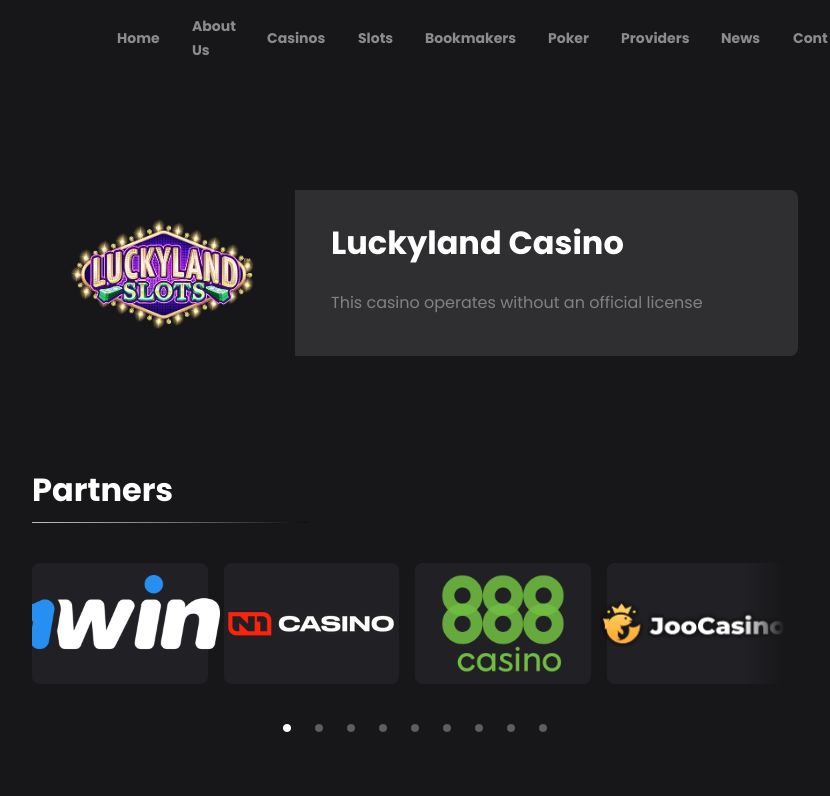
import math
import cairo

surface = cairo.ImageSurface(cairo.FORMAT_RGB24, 830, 796)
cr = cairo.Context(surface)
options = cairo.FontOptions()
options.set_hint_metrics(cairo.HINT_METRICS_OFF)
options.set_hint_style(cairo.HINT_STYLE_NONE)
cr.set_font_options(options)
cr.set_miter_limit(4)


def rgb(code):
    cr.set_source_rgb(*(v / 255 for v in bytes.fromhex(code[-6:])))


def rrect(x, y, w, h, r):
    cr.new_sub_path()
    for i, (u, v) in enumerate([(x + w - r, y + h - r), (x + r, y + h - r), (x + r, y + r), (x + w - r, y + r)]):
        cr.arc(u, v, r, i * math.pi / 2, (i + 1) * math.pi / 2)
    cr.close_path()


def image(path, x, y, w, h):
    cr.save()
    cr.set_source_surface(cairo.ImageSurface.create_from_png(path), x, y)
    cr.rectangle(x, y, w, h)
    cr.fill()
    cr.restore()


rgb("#17171a")
cr.paint()
image("img/1.png", 295, 190, 503, 166)
image("img/2.png", 71, 219, 183, 110)
gradient = cairo.LinearGradient(32, 523, 308, 523)
gradient.add_color_stop_rgba(0, 0.745, 0.745, 0.749, 1)
gradient.add_color_stop_rgba(0.49, 0.471, 0.471, 0.475, 1)
gradient.add_color_stop_rgba(1, 0.047, 0.047, 0.051, 1)
cr.set_source(gradient)
cr.new_path()
cr.move_to(32, 523)
cr.line_to(308, 523)
cr.curve_to(308, 523, 308, 523, 308, 522)
cr.line_to(32, 522)
cr.curve_to(32, 522, 32, 523, 32, 523)
cr.close_path()
cr.fill()
rgb("#212125")
rrect(32, 563, 176, 121, 8)
cr.fill()
image("img/3.png", 32, 575, 188, 75)
rrect(224, 563, 175, 121, 8)
cr.fill()
image("img/4.png", 228, 612, 166, 24)
rrect(415, 563, 176, 121, 8)
cr.fill()
image("img/5.png", 441, 575, 124, 98)
rrect(607, 563, 175, 121, 8)
cr.fill()
image("img/6.png", 600, 600, 184, 47)
gradient = cairo.LinearGradient(798, 624, 743, 624)
gradient.add_color_stop_rgba(0.25, 0.09, 0.09, 0.102, 1)
gradient.add_color_stop_rgba(1, 0.09, 0.09, 0.102, 0)
cr.set_source(gradient)
cr.rectangle(745, 563, 39, 121)
cr.fill()
rgb("#ffffff")
cr.arc(287, 728, 4, 0, 2 * math.pi)
cr.fill()
rgb("#5d5d5f")
cr.arc(319, 728, 4, 0, 2 * math.pi)
cr.fill()
cr.arc(351, 728, 4, 0, 2 * math.pi)
cr.fill()
cr.arc(383, 728, 4, 0, 2 * math.pi)
cr.fill()
cr.arc(415, 728, 4, 0, 2 * math.pi)
cr.fill()
cr.arc(447, 728, 4, 0, 2 * math.pi)
cr.fill()
cr.arc(479, 728, 4, 0, 2 * math.pi)
cr.fill()
cr.arc(511, 728, 4, 0, 2 * math.pi)
cr.fill()
cr.arc(543, 728, 4, 0, 2 * math.pi)
cr.fill()
cr.select_font_face("Poppins", cairo.FONT_SLANT_NORMAL, cairo.FONT_WEIGHT_BOLD)
cr.set_font_size(14)
rgb("#8b8b8d")
for x, y, s in [
    (117, 43, "Home"),
    (192, 31, "About"),
    (192, 55, "Us"),
    (267, 43, "Casinos"),
    (358, 43, "Slots"),
    (425, 43, "Bookmakers"),
    (548, 43, "Poker"),
    (621, 43, "Providers"),
    (721, 43, "News"),
    (793, 43, "Cont"),
]:
    cr.move_to(x, y)
    cr.show_text(s)
cr.set_font_size(32)
rgb("#ffffff")
cr.move_to(331, 254)
cr.show_text("Luckyland Casino")
cr.select_font_face("Poppins")
cr.set_font_size(16)
rgb("#818183")
cr.move_to(331, 308)
cr.show_text("This casino operates without an official license")
cr.select_font_face("Poppins", cairo.FONT_SLANT_NORMAL, cairo.FONT_WEIGHT_BOLD)
cr.set_font_size(32)
rgb("#ffffff")
cr.move_to(32, 501)
cr.show_text("Partners")
surface.write_to_png("page.png")
